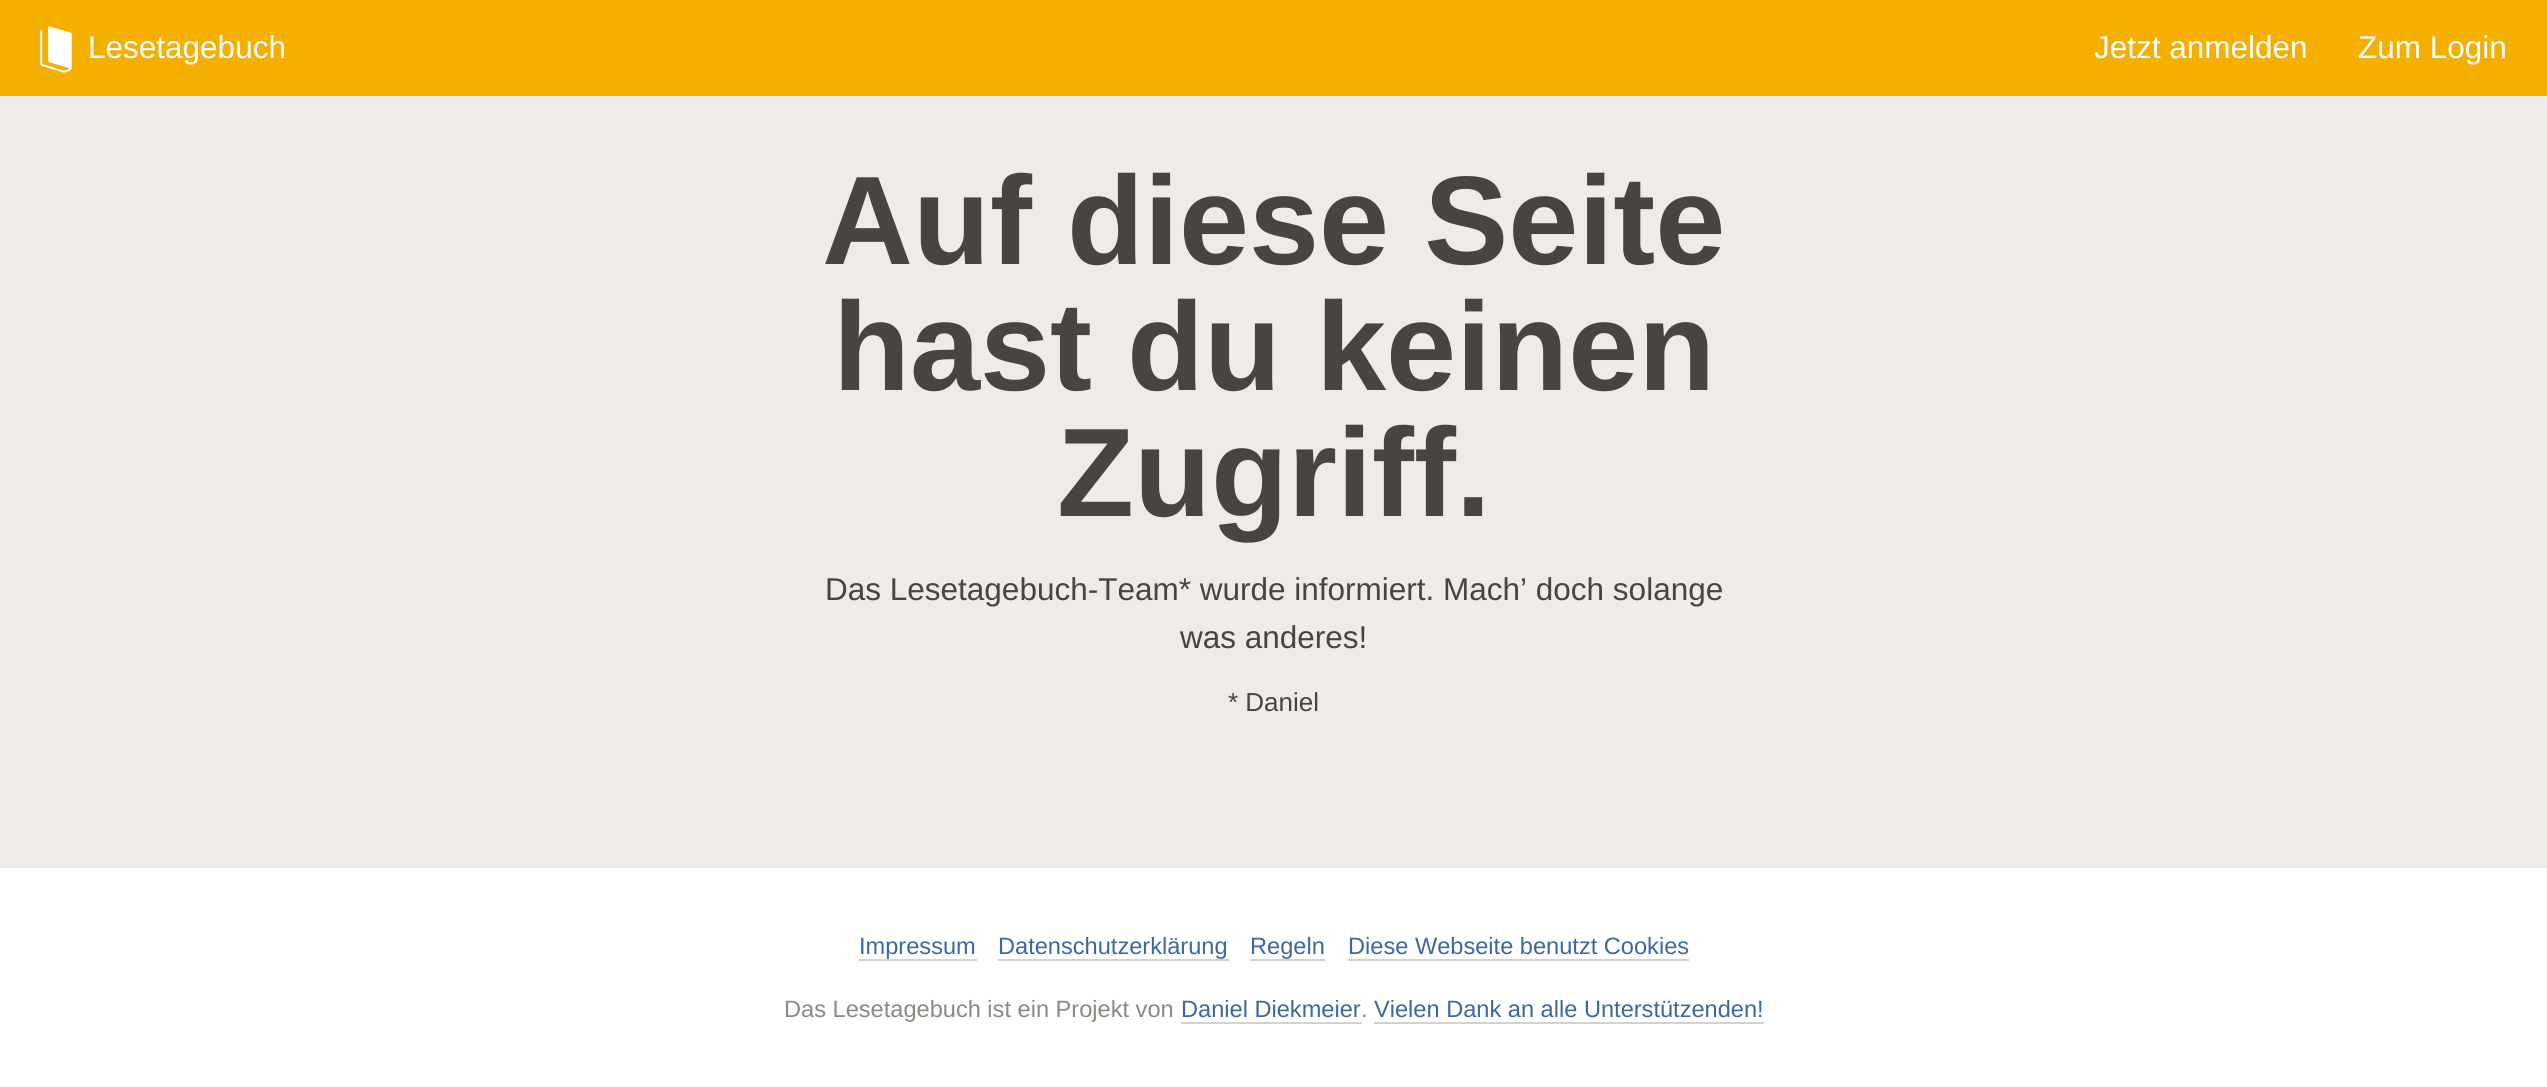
import math
import cairo

surface = cairo.ImageSurface(cairo.FORMAT_RGB24, 2547, 1087)
cr = cairo.Context(surface)
options = cairo.FontOptions()
options.set_hint_metrics(cairo.HINT_METRICS_OFF)
options.set_hint_style(cairo.HINT_STYLE_NONE)
cr.set_font_options(options)
cr.set_miter_limit(4)


def rgb(code):
    cr.set_source_rgb(*(v / 255 for v in bytes.fromhex(code[-6:])))


def image(path, x, y, w, h):
    cr.save()
    cr.set_source_surface(cairo.ImageSurface.create_from_png(path), x, y)
    cr.rectangle(x, y, w, h)
    cr.fill()
    cr.restore()


rgb("#f0ebe6")
cr.paint()
rgb("#f5af00")
cr.rectangle(0, 0, 2547, 96)
cr.fill()
image("img/1.png", 40, 26, 32, 47)
for x, y, w, h, color in [
    (0, 868, 2547, 219, "#ffffff"),
    (859, 959, 118, 2, "#d4d2d0"),
    (998, 959, 231, 2, "#d4d2d0"),
    (1250, 959, 75, 2, "#d4d2d0"),
    (1348, 959, 341, 2, "#d4d2d0"),
    (1181, 1022, 181, 2, "#d4d2d0"),
    (1374, 1022, 390, 2, "#d4d2d0"),
]:
    rgb(color)
    cr.rectangle(x, y, w, h)
    cr.fill()
cr.select_font_face("Liberation Sans")
cr.set_font_size(31.5)
rgb("#ffffff")
for x, y, s in [
    (88, 58, "Lesetagebuch"),
    (2094, 58, "Jetzt anmelden"),
    (2358, 58, "Zum Login"),
]:
    cr.move_to(x, y)
    cr.show_text(s)
cr.select_font_face("Liberation Sans", cairo.FONT_SLANT_NORMAL, cairo.FONT_WEIGHT_BOLD)
cr.set_font_size(126)
rgb("#474441")
for x, y, s in [
    (822, 264, "Auf diese Seite"),
    (833, 390, "hast du keinen"),
    (1057, 516, "Zugriff."),
]:
    cr.move_to(x, y)
    cr.show_text(s)
cr.select_font_face("Liberation Sans")
cr.set_font_size(31.5)
cr.move_to(825, 600)
cr.show_text("Das Lesetagebuch-Team* wurde informiert. Mach’ doch solange")
cr.move_to(1180, 648)
cr.show_text("was anderes!")
cr.set_font_size(26)
cr.move_to(1228, 711)
cr.show_text("* Daniel")
cr.set_font_size(23.6)
rgb("#3d66a5")
for x, y, s in [
    (859, 954, "Impressum"),
    (998, 954, "Datenschutzerklärung"),
    (1250, 954, "Regeln"),
    (1348, 954, "Diese Webseite benutzt Cookies"),
]:
    cr.move_to(x, y)
    cr.show_text(s)
rgb("#8e8882")
cr.move_to(784, 1017)
cr.show_text("Das Lesetagebuch ist ein Projekt von")
rgb("#3d66a5")
cr.move_to(1181, 1017)
cr.show_text("Daniel Diekmeier")
rgb("#8e8882")
cr.move_to(1361, 1017)
cr.show_text(".")
rgb("#3d66a5")
cr.move_to(1374, 1017)
cr.show_text("Vielen Dank an alle Unterstützenden!")
surface.write_to_png("page.png")
